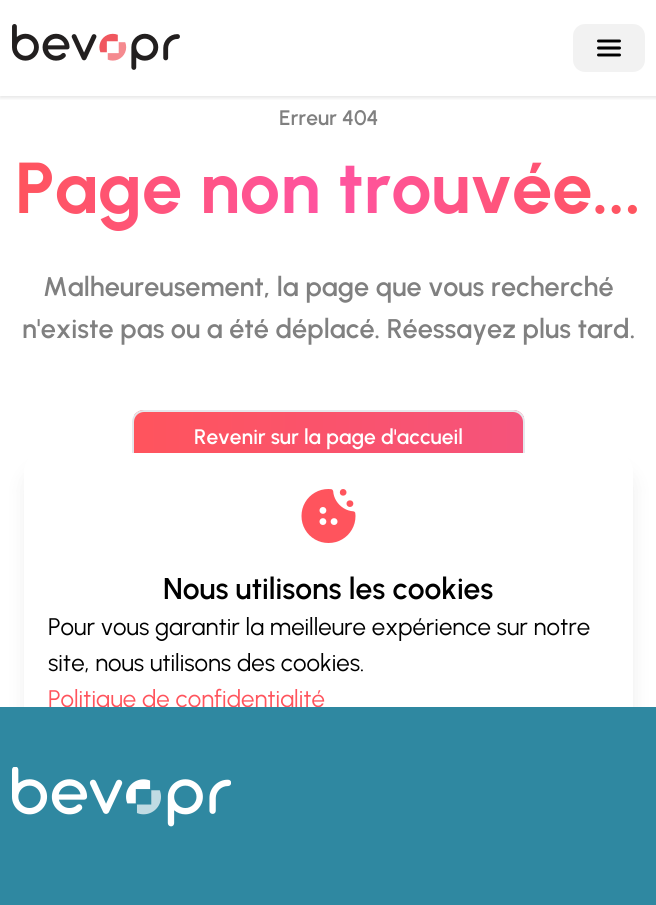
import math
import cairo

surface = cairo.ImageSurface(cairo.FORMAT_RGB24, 656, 905)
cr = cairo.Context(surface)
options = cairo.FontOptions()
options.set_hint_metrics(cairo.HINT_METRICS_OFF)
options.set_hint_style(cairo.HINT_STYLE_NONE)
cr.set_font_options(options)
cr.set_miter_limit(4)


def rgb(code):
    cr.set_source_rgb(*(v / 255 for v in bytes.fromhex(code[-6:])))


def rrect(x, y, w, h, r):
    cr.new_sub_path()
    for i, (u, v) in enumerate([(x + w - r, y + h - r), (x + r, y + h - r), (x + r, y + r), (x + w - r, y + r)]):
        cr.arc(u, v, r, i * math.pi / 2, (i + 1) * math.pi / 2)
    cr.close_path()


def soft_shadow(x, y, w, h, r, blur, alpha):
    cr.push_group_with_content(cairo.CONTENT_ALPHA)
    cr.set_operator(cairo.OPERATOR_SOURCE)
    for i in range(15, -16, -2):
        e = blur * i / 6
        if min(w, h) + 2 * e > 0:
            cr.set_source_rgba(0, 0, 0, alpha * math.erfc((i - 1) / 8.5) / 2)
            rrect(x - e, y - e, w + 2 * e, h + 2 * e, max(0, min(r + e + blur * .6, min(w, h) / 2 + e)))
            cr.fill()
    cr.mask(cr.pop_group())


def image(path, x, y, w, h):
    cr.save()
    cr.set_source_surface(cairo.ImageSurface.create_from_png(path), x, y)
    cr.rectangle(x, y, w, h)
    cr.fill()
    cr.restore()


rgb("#ffffff")
cr.paint()
cr.save()
cr.rectangle(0, 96, 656, 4)
cr.clip()
rgb("#000000")
soft_shadow(0, 2, 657, 96, 0, 2, 0.1)
cr.restore()
image("img/1.png", 12, 24, 168, 46)
rgb("#f2f2f2")
rrect(573, 24, 72, 48, 12)
cr.fill()
image("img/2.png", 597, 39, 24, 18)
cr.save()
rrect(132, 410, 393, 57, 12)
cr.clip()
gradient = cairo.LinearGradient(134, 438, 524, 438)
gradient.add_color_stop_rgba(0, 1, 0.329, 0.365, 1)
gradient.add_color_stop_rgba(1, 0.961, 0.325, 0.482, 1)
cr.set_source(gradient)
cr.rectangle(134, 410, 390, 43)
cr.fill()
cr.restore()
rrect(133, 411, 391, 55, 11)
rgb("#e5e7eb")
cr.stroke()
rgb("#000000")
soft_shadow(29, 473, 600, 420, 14, 11, 0.1)
rgb("#ffffff")
rrect(24, 453, 609, 429, 18)
cr.fill()
image("img/4.png", 301, 489, 55, 54)
cr.select_font_face("Urbanist SemiBold")
cr.set_font_size(21)
rgb("#808080")
cr.move_to(279, 125)
cr.show_text("Erreur 404")
cr.select_font_face("Urbanist", cairo.FONT_SLANT_NORMAL, cairo.FONT_WEIGHT_BOLD)
cr.set_font_size(72)
gradient = cairo.LinearGradient(15, 188, 642, 187)
gradient.add_color_stop_rgba(0, 1, 0.329, 0.365, 1)
gradient.add_color_stop_rgba(0.5, 1, 0.329, 0.631, 1)
gradient.add_color_stop_rgba(1, 1, 0.329, 0.365, 1)
cr.set_source(gradient)
cr.move_to(15, 213)
cr.show_text("Page non trouvée...")
cr.select_font_face("Urbanist SemiBold")
cr.set_font_size(27)
rgb("#808080")
cr.move_to(43, 296)
cr.show_text("Malheureusement, la page que vous recherché")
cr.move_to(22, 338)
cr.show_text("n'existe pas ou a été déplacé. Réessayez plus tard.")
cr.set_font_size(21)
rgb("#ffffff")
cr.move_to(194, 444)
cr.show_text("Revenir sur la page d'accueil")
cr.set_font_size(30)
rgb("#000000")
cr.move_to(163, 599)
cr.show_text("Nous utilisons les cookies")
cr.select_font_face("Urbanist")
cr.set_font_size(24)
cr.move_to(48, 635)
cr.show_text("Pour vous garantir la meilleure expérience sur notre")
cr.move_to(48, 671)
cr.show_text("site, nous utilisons des cookies.")
rgb("#ff545d")
cr.move_to(48, 707)
cr.show_text("Politique de confidentialité")
rgb("#2f88a1")
cr.rectangle(0, 707, 656, 198)
cr.fill()
image("img/3.png", 12, 767, 219, 60)
surface.write_to_png("page.png")
